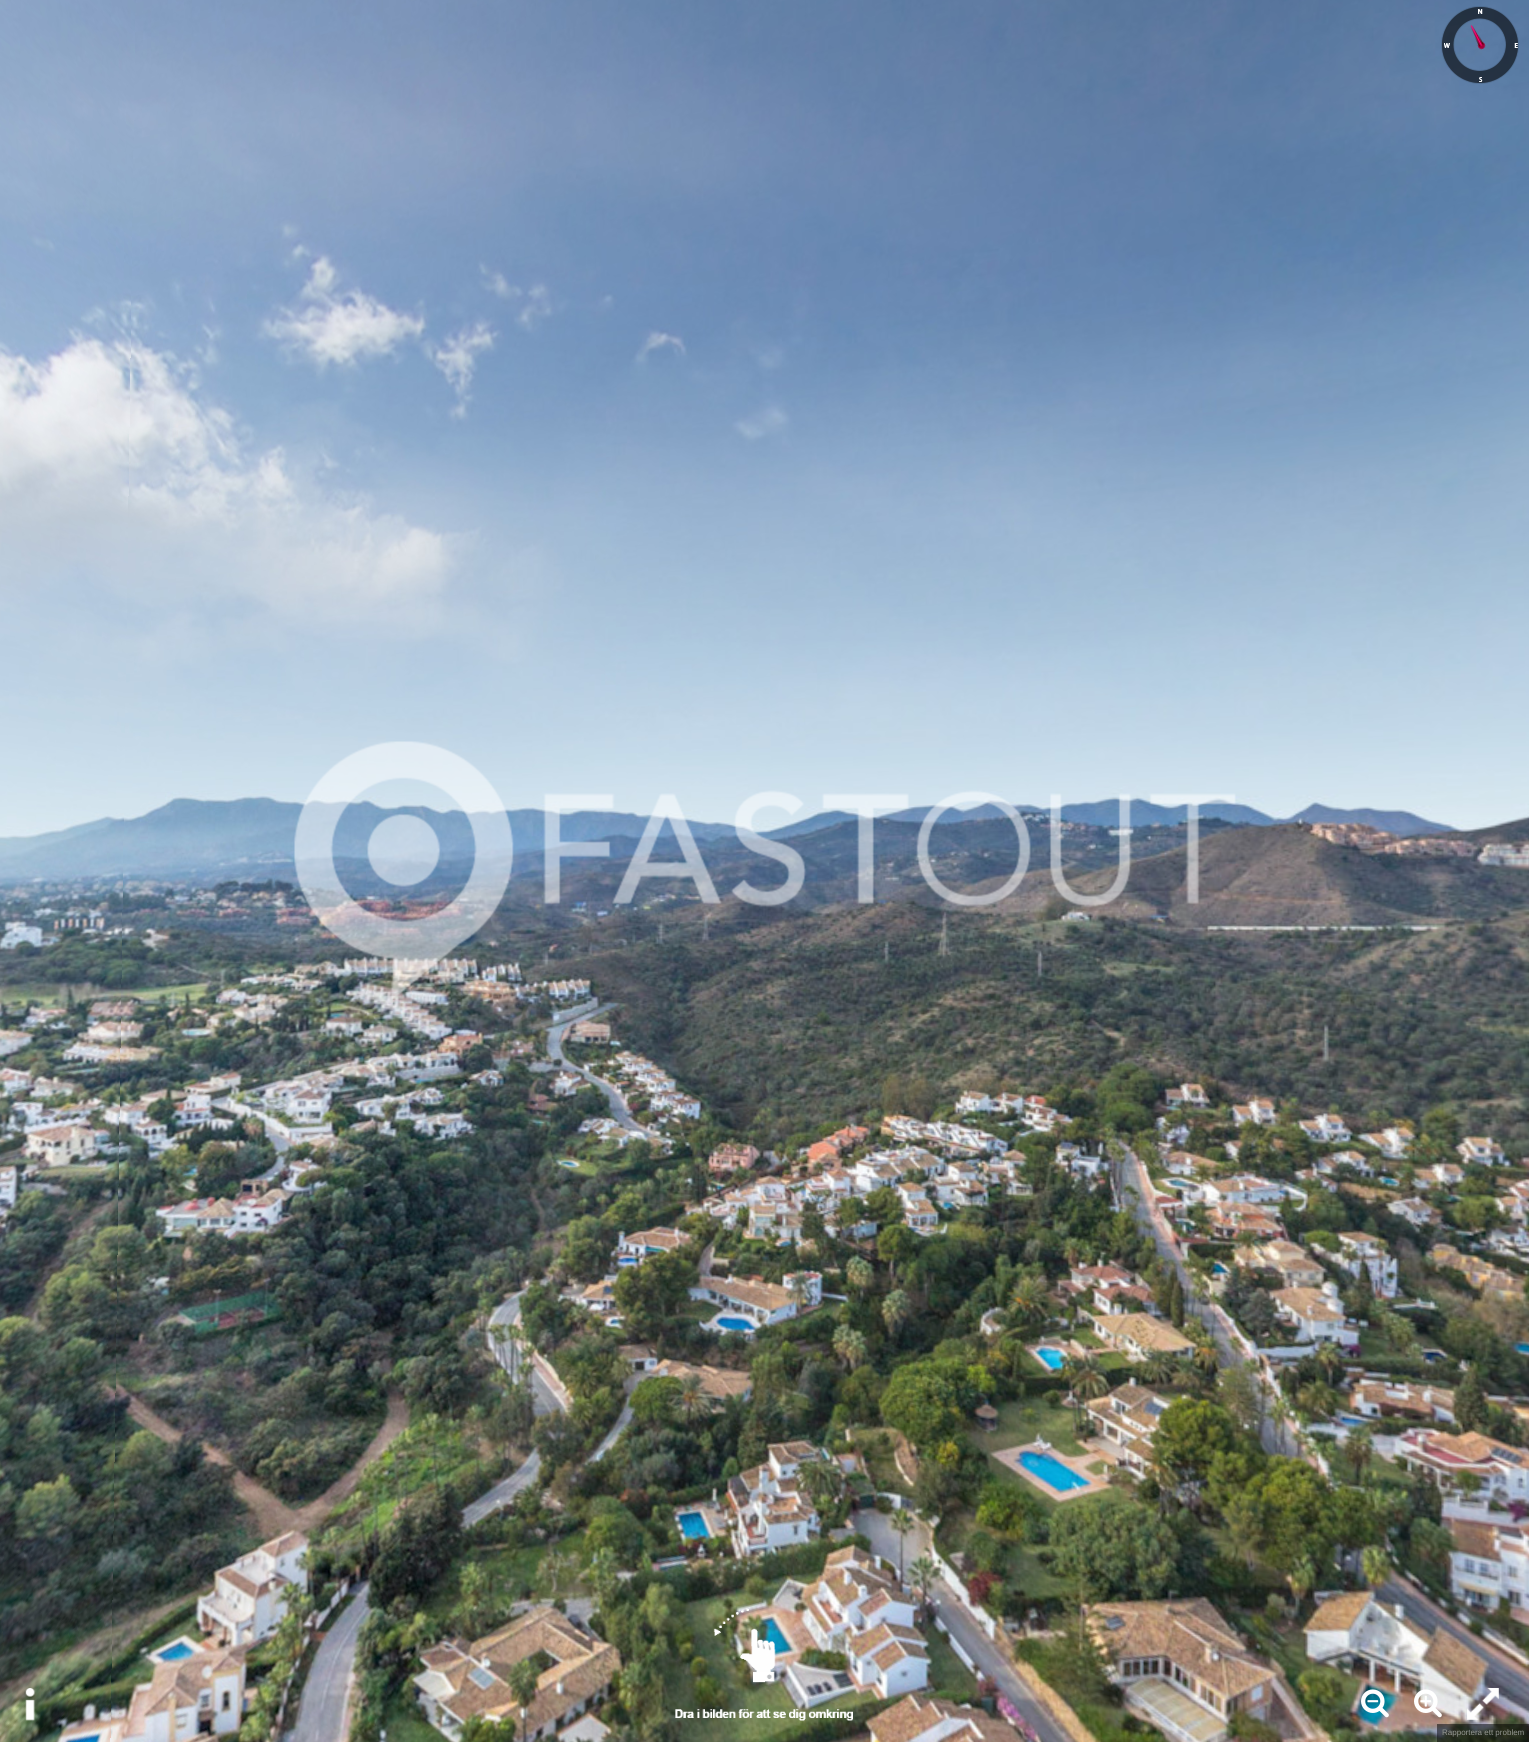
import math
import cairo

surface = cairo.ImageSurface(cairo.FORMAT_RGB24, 1529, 1742)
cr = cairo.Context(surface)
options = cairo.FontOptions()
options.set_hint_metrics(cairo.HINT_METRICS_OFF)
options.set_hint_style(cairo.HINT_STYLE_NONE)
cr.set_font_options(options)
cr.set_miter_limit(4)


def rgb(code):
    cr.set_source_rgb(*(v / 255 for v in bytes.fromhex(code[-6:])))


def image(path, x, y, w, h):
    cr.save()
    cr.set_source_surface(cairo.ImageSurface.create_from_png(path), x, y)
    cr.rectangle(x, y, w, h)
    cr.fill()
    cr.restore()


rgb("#ffffff")
cr.paint()
image("img/1.png", 0, 0, 1529, 1742)
image("img/2.png", 294, 741, 942, 260)
image("img/3.png", 675, 1608, 178, 113)
image("img/4.png", 25, 1688, 10, 33)
image("img/5.png", 1361, 1689, 28, 29)
image("img/6.png", 1414, 1689, 28, 29)
image("img/7.png", 1467, 1688, 32, 32)
image("img/8.png", 1441, 6, 78, 78)
image("img/9.png", 1470, 25, 16, 25)
cr.set_source_rgba(0, 0, 0, 0.5)
cr.rectangle(1437, 1724, 92, 18)
cr.fill()
cr.select_font_face("Liberation Sans")
cr.set_font_size(8)
rgb("#959892")
cr.move_to(1442, 1735)
cr.show_text("Rapportera ett problem")
surface.write_to_png("page.png")
